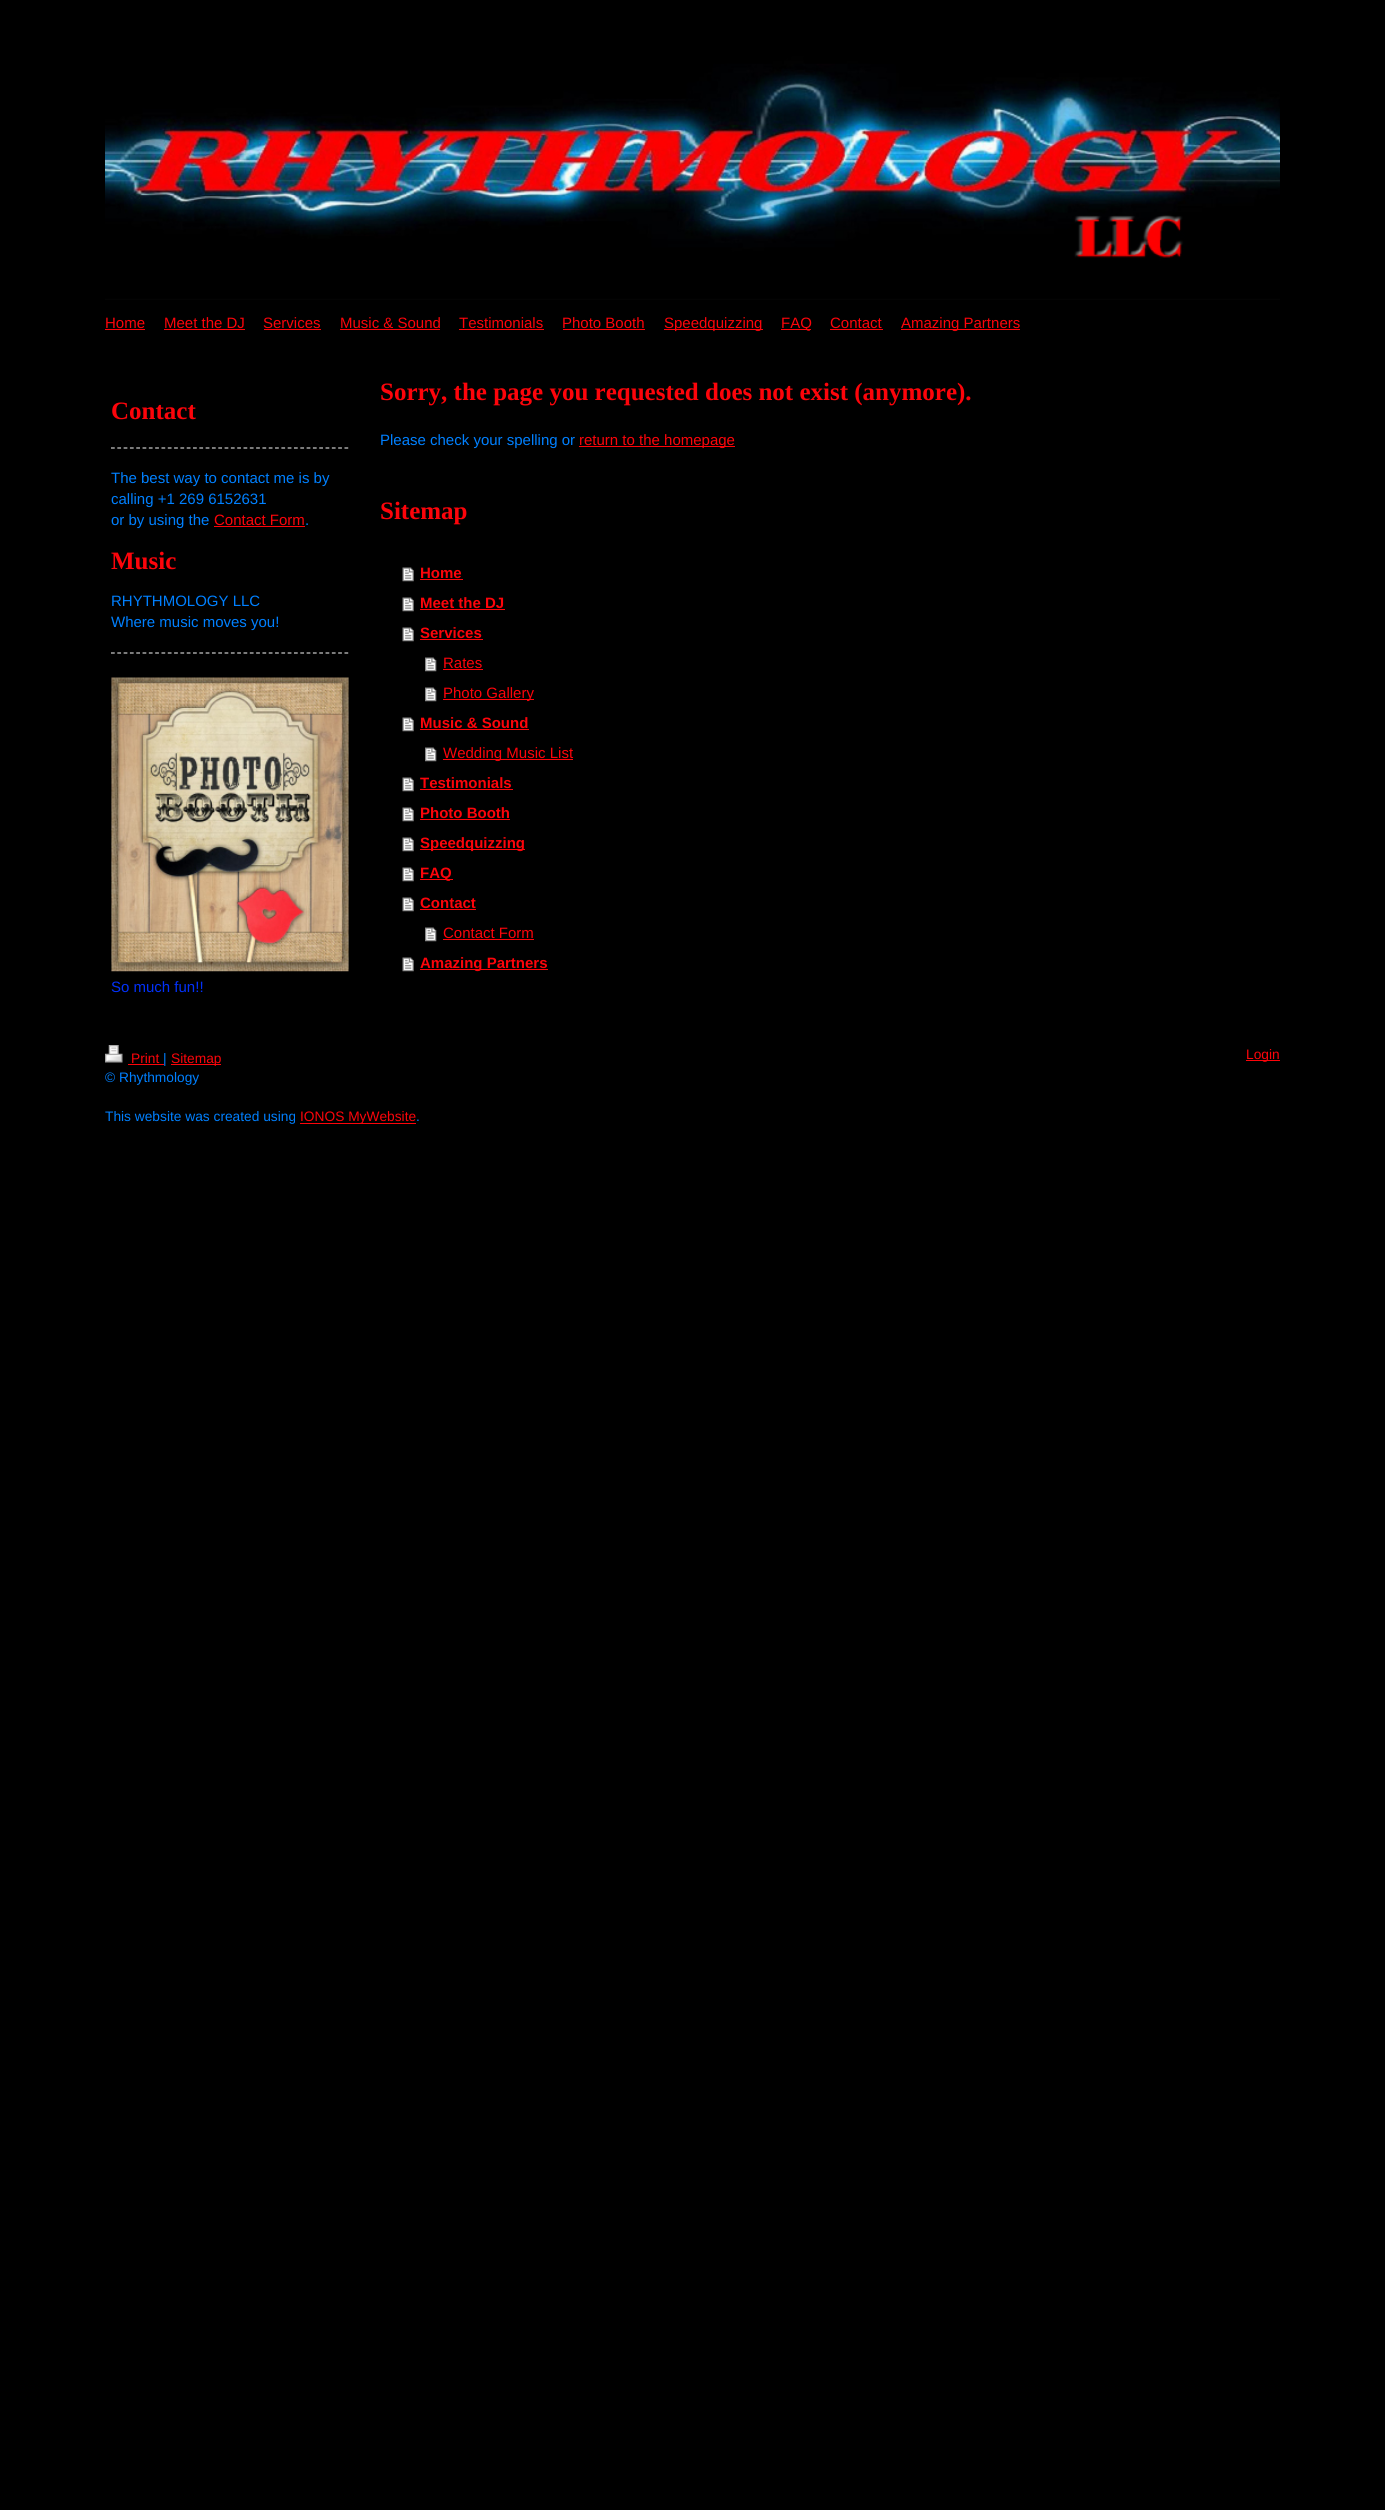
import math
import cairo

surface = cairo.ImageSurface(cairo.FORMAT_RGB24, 1385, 2510)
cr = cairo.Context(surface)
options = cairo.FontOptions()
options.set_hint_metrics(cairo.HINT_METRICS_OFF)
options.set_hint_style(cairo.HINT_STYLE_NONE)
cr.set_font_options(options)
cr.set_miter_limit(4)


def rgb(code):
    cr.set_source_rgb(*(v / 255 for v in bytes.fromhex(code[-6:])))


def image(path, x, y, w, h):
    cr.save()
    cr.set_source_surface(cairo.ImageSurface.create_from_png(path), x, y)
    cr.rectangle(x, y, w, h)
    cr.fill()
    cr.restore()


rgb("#000000")
cr.paint()
image("img/1.png", 105, 38, 1175, 262)
for x, y, w, h, color in [
    (105, 329, 40, 1, "#fd040a"),
    (164, 329, 81, 1, "#fd040a"),
    (264, 329, 57, 1, "#fd040a"),
    (340, 329, 100, 1, "#fd040a"),
    (459, 329, 85, 1, "#fd040a"),
    (563, 329, 82, 1, "#fd040a"),
    (664, 329, 99, 1, "#fd040a"),
    (781, 329, 30, 1, "#fd040a"),
    (830, 329, 53, 1, "#fd040a"),
    (901, 329, 119, 1, "#fd040a"),
]:
    rgb(color)
    cr.rectangle(x, y, w, h)
    cr.fill()
cr.new_path()
cr.move_to(111, 448)
cr.line_to(349, 448)
rgb("#cccccc")
cr.set_line_width(1.2)
cr.set_dash([3.75, 2.56])
cr.stroke()
rgb("#fd040a")
cr.rectangle(214, 526, 91, 1)
cr.fill()
cr.new_path()
cr.move_to(111, 653)
cr.line_to(349, 653)
rgb("#cccccc")
cr.stroke()
image("img/2.png", 111, 677, 238, 295)
rgb("#fd040a")
cr.rectangle(579, 446, 156, 1)
cr.fill()
image("img/3.png", 402, 567, 12, 15)
cr.rectangle(420, 579, 43, 1)
cr.fill()
image("img/3.png", 402, 597, 12, 15)
cr.rectangle(420, 609, 85, 1)
cr.fill()
image("img/3.png", 402, 627, 12, 15)
cr.rectangle(420, 639, 63, 1)
cr.fill()
image("img/4.png", 425, 657, 12, 15)
cr.rectangle(443, 669, 40, 1)
cr.fill()
image("img/4.png", 425, 687, 12, 15)
cr.rectangle(443, 699, 91, 1)
cr.fill()
image("img/3.png", 402, 717, 12, 15)
cr.rectangle(420, 729, 109, 1)
cr.fill()
image("img/4.png", 425, 747, 12, 15)
cr.rectangle(443, 759, 130, 1)
cr.fill()
image("img/5.png", 402, 777, 12, 15)
cr.rectangle(420, 789, 93, 1)
cr.fill()
image("img/3.png", 402, 807, 12, 15)
cr.rectangle(420, 819, 90, 1)
cr.fill()
image("img/3.png", 402, 837, 12, 15)
cr.rectangle(420, 849, 105, 1)
cr.fill()
image("img/3.png", 402, 867, 12, 15)
cr.rectangle(420, 879, 33, 1)
cr.fill()
image("img/3.png", 402, 897, 12, 15)
cr.rectangle(420, 909, 56, 1)
cr.fill()
image("img/4.png", 425, 927, 12, 15)
cr.rectangle(443, 939, 91, 1)
cr.fill()
image("img/3.png", 402, 957, 12, 15)
cr.rectangle(420, 969, 128, 1)
cr.fill()
image("img/6.png", 105, 1045, 18, 18)
for x, y, w, h, color in [
    (128, 1064, 36, 1, "#fd040a"),
    (171, 1064, 50, 1, "#fd040a"),
    (300, 1123, 116, 1, "#fd040a"),
    (1246, 1060, 34, 1, "#fd040a"),
]:
    rgb(color)
    cr.rectangle(x, y, w, h)
    cr.fill()
cr.select_font_face("Liberation Sans")
cr.set_font_size(15)
for x, y, s in [
    (105, 328, "Home"),
    (164, 328, "Meet the DJ"),
    (263, 328, "Services"),
    (340, 328, "Music & Sound"),
    (459, 328, "Testimonials"),
    (562, 328, "Photo Booth"),
    (664, 328, "Speedquizzing"),
    (781, 328, "FAQ"),
    (830, 328, "Contact"),
    (901, 328, "Amazing Partners"),
]:
    cr.move_to(x, y)
    cr.show_text(s)
cr.select_font_face("Liberation Serif", cairo.FONT_SLANT_NORMAL, cairo.FONT_WEIGHT_BOLD)
cr.set_font_size(25)
cr.move_to(111, 419)
cr.show_text("Contact")
cr.select_font_face("Liberation Sans")
cr.set_font_size(15)
rgb("#0080ff")
for x, y, s in [
    (111, 483, "The best way to contact me is by"),
    (111, 504, "calling +1 269 6152631"),
    (111, 525, "or by using the"),
]:
    cr.move_to(x, y)
    cr.show_text(s)
rgb("#fd040a")
cr.move_to(214, 525)
cr.show_text("Contact Form")
rgb("#0080ff")
cr.move_to(305, 525)
cr.show_text(".")
cr.select_font_face("Liberation Serif", cairo.FONT_SLANT_NORMAL, cairo.FONT_WEIGHT_BOLD)
cr.set_font_size(25)
rgb("#fd040a")
cr.move_to(111, 569)
cr.show_text("Music")
cr.select_font_face("Liberation Sans")
cr.set_font_size(15)
rgb("#0080ff")
cr.move_to(111, 606)
cr.show_text("RHYTHMOLOGY LLC")
cr.move_to(111, 627)
cr.show_text("Where music moves you!")
rgb("#0231f9")
cr.move_to(111, 992)
cr.show_text("So much fun!!")
cr.select_font_face("Liberation Serif", cairo.FONT_SLANT_NORMAL, cairo.FONT_WEIGHT_BOLD)
cr.set_font_size(25)
rgb("#fd040a")
cr.move_to(380, 400)
cr.show_text("Sorry, the page you requested does not exist (anymore).")
cr.select_font_face("Liberation Sans")
cr.set_font_size(15)
rgb("#0080ff")
cr.move_to(380, 445)
cr.show_text("Please check your spelling or")
rgb("#fd040a")
cr.move_to(579, 445)
cr.show_text("return to the homepage")
cr.select_font_face("Liberation Serif", cairo.FONT_SLANT_NORMAL, cairo.FONT_WEIGHT_BOLD)
cr.set_font_size(25)
cr.move_to(380, 519)
cr.show_text("Sitemap")
cr.select_font_face("Liberation Sans", cairo.FONT_SLANT_NORMAL, cairo.FONT_WEIGHT_BOLD)
cr.set_font_size(15)
for x, y, s in [
    (420, 578, "Home"),
    (420, 608, "Meet the DJ"),
    (420, 638, "Services"),
]:
    cr.move_to(x, y)
    cr.show_text(s)
cr.select_font_face("Liberation Sans")
cr.move_to(443, 668)
cr.show_text("Rates")
cr.move_to(443, 698)
cr.show_text("Photo Gallery")
cr.select_font_face("Liberation Sans", cairo.FONT_SLANT_NORMAL, cairo.FONT_WEIGHT_BOLD)
cr.move_to(420, 728)
cr.show_text("Music & Sound")
cr.select_font_face("Liberation Sans")
cr.move_to(443, 758)
cr.show_text("Wedding Music List")
cr.select_font_face("Liberation Sans", cairo.FONT_SLANT_NORMAL, cairo.FONT_WEIGHT_BOLD)
for x, y, s in [
    (420, 788, "Testimonials"),
    (420, 818, "Photo Booth"),
    (420, 848, "Speedquizzing"),
    (420, 878, "FAQ"),
    (420, 908, "Contact"),
]:
    cr.move_to(x, y)
    cr.show_text(s)
cr.select_font_face("Liberation Sans")
cr.move_to(443, 938)
cr.show_text("Contact Form")
cr.select_font_face("Liberation Sans", cairo.FONT_SLANT_NORMAL, cairo.FONT_WEIGHT_BOLD)
cr.move_to(420, 968)
cr.show_text("Amazing Partners")
cr.select_font_face("Liberation Sans")
cr.set_font_size(13.75)
cr.move_to(131, 1063)
cr.show_text("Print")
rgb("#0080ff")
cr.move_to(163, 1063)
cr.show_text("|")
rgb("#fd040a")
cr.move_to(171, 1063)
cr.show_text("Sitemap")
rgb("#0080ff")
cr.move_to(105, 1082)
cr.show_text("© Rhythmology")
cr.move_to(105, 1121)
cr.show_text("This website was created using")
rgb("#fd040a")
cr.move_to(300, 1121)
cr.show_text("IONOS MyWebsite")
rgb("#0080ff")
cr.move_to(416, 1121)
cr.show_text(".")
rgb("#fd040a")
cr.move_to(1246, 1059)
cr.show_text("Login")
surface.write_to_png("page.png")
